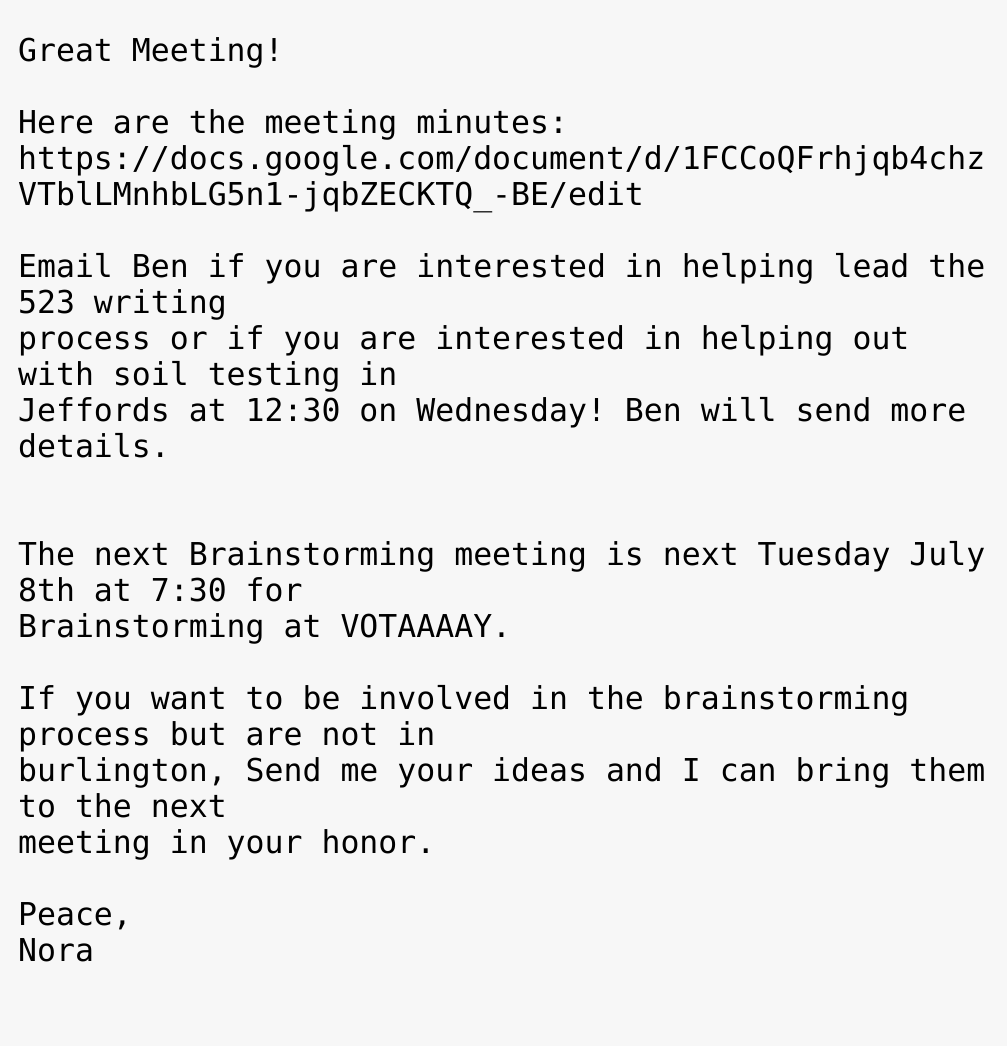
import math
import cairo

surface = cairo.ImageSurface(cairo.FORMAT_RGB24, 1007, 1046)
cr = cairo.Context(surface)
options = cairo.FontOptions()
options.set_hint_metrics(cairo.HINT_METRICS_OFF)
options.set_hint_style(cairo.HINT_STYLE_NONE)
cr.set_font_options(options)
cr.set_miter_limit(4)


def rgb(code):
    cr.set_source_rgb(*(v / 255 for v in bytes.fromhex(code[-6:])))


rgb("#f7f7f7")
cr.paint()
cr.select_font_face("DejaVu Sans Mono")
cr.set_font_size(31.5)
rgb("#000000")
for x, y, s in [
    (18, 61, "Great Meeting!"),
    (18, 133, "Here are the meeting minutes:"),
    (18, 169, "https://docs.google.com/document/d/1FCCoQFrhjqb4chz"),
    (18, 205, "VTblLMnhbLG5n1-jqbZECKTQ_-BE/edit"),
    (18, 277, "Email Ben if you are interested in helping lead the"),
    (18, 313, "523 writing"),
    (18, 349, "process or if you are interested in helping out"),
    (18, 385, "with soil testing in"),
    (18, 421, "Jeffords at 12:30 on Wednesday! Ben will send more"),
    (18, 457, "details."),
    (18, 565, "The next Brainstorming meeting is next Tuesday July"),
    (18, 601, "8th at 7:30 for"),
    (18, 637, "Brainstorming at VOTAAAAY."),
    (18, 709, "If you want to be involved in the brainstorming"),
    (18, 745, "process but are not in"),
    (18, 781, "burlington, Send me your ideas and I can bring them"),
    (18, 817, "to the next"),
    (18, 853, "meeting in your honor."),
    (18, 925, "Peace,"),
    (18, 961, "Nora"),
]:
    cr.move_to(x, y)
    cr.show_text(s)
surface.write_to_png("page.png")
